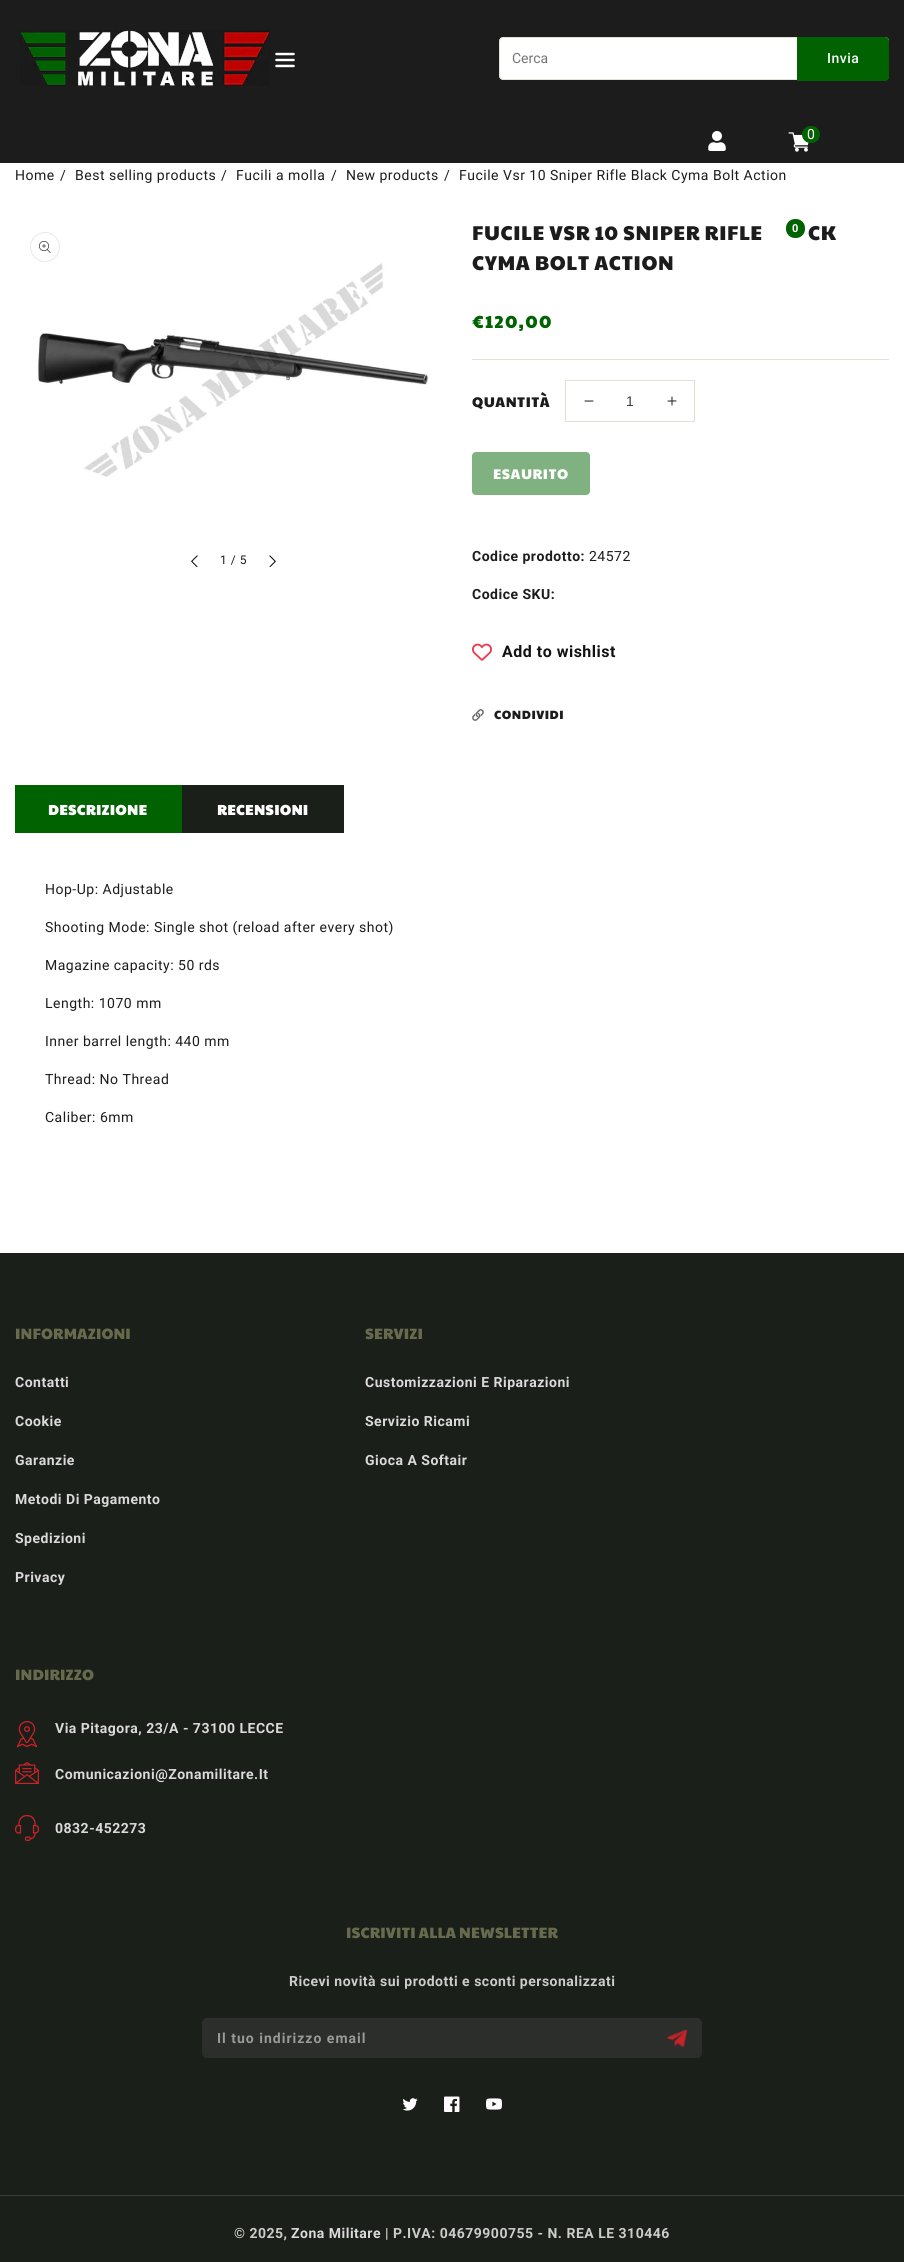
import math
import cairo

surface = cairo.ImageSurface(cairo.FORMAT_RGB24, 904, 2262)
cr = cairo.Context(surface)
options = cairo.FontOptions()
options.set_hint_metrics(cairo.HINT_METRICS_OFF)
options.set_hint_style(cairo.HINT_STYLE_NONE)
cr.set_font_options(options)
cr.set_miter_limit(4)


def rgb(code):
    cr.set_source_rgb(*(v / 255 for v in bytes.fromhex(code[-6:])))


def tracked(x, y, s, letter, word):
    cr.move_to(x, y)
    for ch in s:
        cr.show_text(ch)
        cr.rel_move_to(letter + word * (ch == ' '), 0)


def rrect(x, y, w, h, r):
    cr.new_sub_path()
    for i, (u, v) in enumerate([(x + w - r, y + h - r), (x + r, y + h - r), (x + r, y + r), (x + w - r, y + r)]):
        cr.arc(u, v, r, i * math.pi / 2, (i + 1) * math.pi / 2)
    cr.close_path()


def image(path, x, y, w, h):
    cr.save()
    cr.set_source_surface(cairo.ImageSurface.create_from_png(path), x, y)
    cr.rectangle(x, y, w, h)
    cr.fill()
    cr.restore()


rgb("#ffffff")
cr.paint()
rgb("#1c1c1c")
cr.rectangle(0, 0, 904, 163)
cr.fill()
image("img/1.png", 20, 30, 250, 56)
image("img/2.png", 275, 52, 20, 16)
rgb("#ffffff")
rrect(499.5, 37.5, 389, 42, 3.5)
cr.fill_preserve()
rgb("#e3e0d5")
cr.set_line_width(1)
cr.stroke()
rgb("#016201")
cr.new_path()
cr.move_to(797, 37)
cr.line_to(885, 37)
cr.curve_to(887, 37, 889, 39, 889, 41)
cr.line_to(889, 77)
cr.curve_to(889, 79, 887, 81, 885, 81)
cr.line_to(797, 81)
cr.close_path()
cr.fill()
image("img/3.png", 708, 131, 18, 20)
image("img/4.png", 788, 132, 21, 20)
rrect(802, 126, 18, 17, 8.5)
cr.fill()
image("img/5.png", 768, 230, 26, 11)
rrect(786, 219, 19, 19, 9)
cr.fill()
rgb("#1b1f19")
cr.rectangle(0, 1253, 904, 942)
cr.fill()
image("img/6.png", 17, 1721, 20, 26)
image("img/7.png", 15, 1762, 24, 22)
image("img/8.png", 15, 1815, 24, 26)
rgb("#2c2e2b")
rrect(202.5, 2018.5, 499, 39, 4.5)
cr.fill_preserve()
cr.stroke()
image("img/9.png", 667, 2030, 20, 17)
image("img/10.png", 402, 2098, 16, 13)
image("img/11.png", 444, 2096, 16, 16)
image("img/12.png", 486, 2098, 16, 12)
rgb("#1b1f19")
cr.rectangle(0, 2196, 904, 66)
cr.fill()
rgb("#3c3c3c")
cr.rectangle(0, 2195, 904, 1)
cr.fill()
cr.arc(45, 247, 14.5, 0, 2 * math.pi)
rgb("#e8e8e8")
cr.stroke()
image("img/13.png", 39, 241, 12, 12)
image("img/14.png", 37, 263, 392, 214)
image("img/15.png", 191, 555, 7, 12)
image("img/16.png", 269, 555, 7, 12)
rgb("#e3e0d5")
cr.rectangle(472, 359, 417, 1)
cr.fill()
cr.rectangle(565.5, 380.5, 129, 41)
cr.stroke()
image("img/17.png", 584, 400, 10, 2)
image("img/18.png", 667, 396, 10, 10)
rgb("#80b180")
rrect(472, 452, 118, 43, 4)
cr.fill()
image("img/19.png", 472, 643, 20, 18)
image("img/20.png", 472, 709, 12, 12)
rgb("#016201")
cr.rectangle(15, 785, 167, 48)
cr.fill()
rgb("#1b1f19")
cr.rectangle(182, 785, 162, 48)
cr.fill()
cr.select_font_face("Roboto")
cr.set_font_size(14)
rgb("#757575")
cr.move_to(512, 63)
cr.show_text("Cerca")
cr.select_font_face("Roboto Medium")
rgb("#ffffff")
tracked(827, 63, "Invia", 0.5, 0)
cr.select_font_face("Roboto")
tracked(807, 139, "0", 0.5, 0)
rgb("#1c1c1c")
for x, y, s in [
    (15, 180, "Home"),
    (60, 180, "/"),
    (75, 180, "Best selling products"),
    (221, 180, "/"),
    (236, 180, "Fucili a molla"),
    (331, 180, "/"),
    (346, 180, "New products"),
    (444, 180, "/"),
    (459, 180, "Fucile Vsr 10 Sniper Rifle Black Cyma Bolt Action"),
]:
    tracked(x, y, s, 0.5, 0)
cr.select_font_face("Roboto", cairo.FONT_SLANT_NORMAL, cairo.FONT_WEIGHT_BOLD)
cr.set_font_size(11)
rgb("#ffffff")
tracked(792, 232, "0", 0.5, 0)
cr.select_font_face("Paytone One")
cr.set_font_size(15)
rgb("#676a4d")
tracked(15, 1339, "INFORMAZIONI", 0.1, 0)
cr.select_font_face("Roboto", cairo.FONT_SLANT_NORMAL, cairo.FONT_WEIGHT_BOLD)
cr.set_font_size(14)
rgb("#dbd9db")
for x, y, s in [
    (15, 1387, "Contatti"),
    (15, 1426, "Cookie"),
    (15, 1465, "Garanzie"),
    (15, 1504, "Metodi Di Pagamento"),
    (15, 1543, "Spedizioni"),
    (15, 1582, "Privacy"),
]:
    tracked(x, y, s, 0.5, 0)
cr.select_font_face("Paytone One")
cr.set_font_size(15)
rgb("#676a4d")
tracked(365, 1339, "SERVIZI", 0.1, 0)
cr.select_font_face("Roboto", cairo.FONT_SLANT_NORMAL, cairo.FONT_WEIGHT_BOLD)
cr.set_font_size(14)
rgb("#dbd9db")
for x, y, s in [
    (365, 1387, "Customizzazioni E Riparazioni"),
    (365, 1426, "Servizio Ricami"),
    (365, 1465, "Gioca A Softair"),
]:
    tracked(x, y, s, 0.5, 0)
cr.select_font_face("Paytone One")
cr.set_font_size(15)
rgb("#676a4d")
tracked(15, 1680, "INDIRIZZO", 0.1, 0)
cr.select_font_face("Roboto", cairo.FONT_SLANT_NORMAL, cairo.FONT_WEIGHT_BOLD)
cr.set_font_size(14)
rgb("#dbd9db")
for x, y, s in [
    (55, 1733, "Via Pitagora, 23/A - 73100 LECCE"),
    (55, 1779, "Comunicazioni@Zonamilitare.It"),
    (55, 1833, "0832-452273"),
]:
    tracked(x, y, s, 0.5, 0)
cr.select_font_face("Paytone One")
cr.set_font_size(15)
rgb("#676a4d")
tracked(346, 1938, "ISCRIVITI ALLA NEWSLETTER", 0.1, 0)
cr.select_font_face("Roboto", cairo.FONT_SLANT_NORMAL, cairo.FONT_WEIGHT_BOLD)
cr.set_font_size(14)
rgb("#cccccc")
tracked(289, 1986, "Ricevi novità sui prodotti e sconti personalizzati", 0.5, 0)
rgb("#9a9a9a")
tracked(217, 2043, "Il tuo indirizzo email", 1, 0)
rgb("#cccccc")
tracked(234, 2238, "© 2025,", 0.5, 0)
rgb("#dbd9db")
tracked(291, 2238, "Zona Militare", 0.5, 0)
rgb("#cccccc")
tracked(385, 2238, "| P.IVA: 04679900755 - N. REA LE 310446", 0.5, 0)
cr.select_font_face("Roboto")
cr.set_font_size(12)
rgb("#1c1c1c")
tracked(220, 564, "1 / 5", 0.5, 0)
cr.select_font_face("Paytone One")
cr.set_font_size(20)
for x, y, s in [
    (472, 240, "FUCILE VSR 10 SNIPER RIFLE"),
    (808, 240, "CK"),
    (472, 270, "CYMA BOLT ACTION"),
]:
    tracked(x, y, s, 0.6, 0)
cr.set_font_size(18)
rgb("#016201")
tracked(472, 328, "€120,00", 1.25, 0)
cr.set_font_size(14)
rgb("#1c1c1c")
tracked(472, 407, "QUANTITÀ", 0.5, 0)
cr.select_font_face("Liberation Sans")
rgb("#3e3e3e")
cr.move_to(626, 406)
cr.show_text("1")
cr.select_font_face("Paytone One")
rgb("#ffffff")
tracked(493, 479, "ESAURITO", 0.5, 0)
cr.select_font_face("Roboto", cairo.FONT_SLANT_NORMAL, cairo.FONT_WEIGHT_BOLD)
rgb("#1c1c1c")
tracked(472, 561, "Codice prodotto:", 0.5, 0)
cr.select_font_face("Roboto")
tracked(589, 561, "24572", 0.5, 0)
cr.select_font_face("Roboto", cairo.FONT_SLANT_NORMAL, cairo.FONT_WEIGHT_BOLD)
tracked(472, 599, "Codice SKU:", 0.5, 0)
cr.set_font_size(16)
rgb("#121212")
tracked(502, 657, "Add to wishlist", 0.5, 0)
cr.select_font_face("Paytone One")
cr.set_font_size(12)
rgb("#1c1c1c")
tracked(494, 719, "CONDIVIDI", 0.5, 0)
cr.select_font_face("Paytone One", cairo.FONT_SLANT_NORMAL, cairo.FONT_WEIGHT_BOLD)
cr.set_font_size(14)
rgb("#ffffff")
tracked(48, 815, "DESCRIZIONE", 0.5, 0)
tracked(217, 815, "RECENSIONI", 0.5, 0)
cr.select_font_face("Roboto")
rgb("#1c1c1c")
for x, y, s in [
    (45, 894, "Hop-Up: Adjustable"),
    (45, 932, "Shooting Mode: Single shot (reload after every shot)"),
    (45, 970, "Magazine capacity: 50 rds"),
    (45, 1008, "Length: 1070 mm"),
    (45, 1046, "Inner barrel length: 440 mm"),
    (45, 1084, "Thread: No Thread"),
    (45, 1122, "Caliber: 6mm"),
]:
    tracked(x, y, s, 0.5, 0)
surface.write_to_png("page.png")
